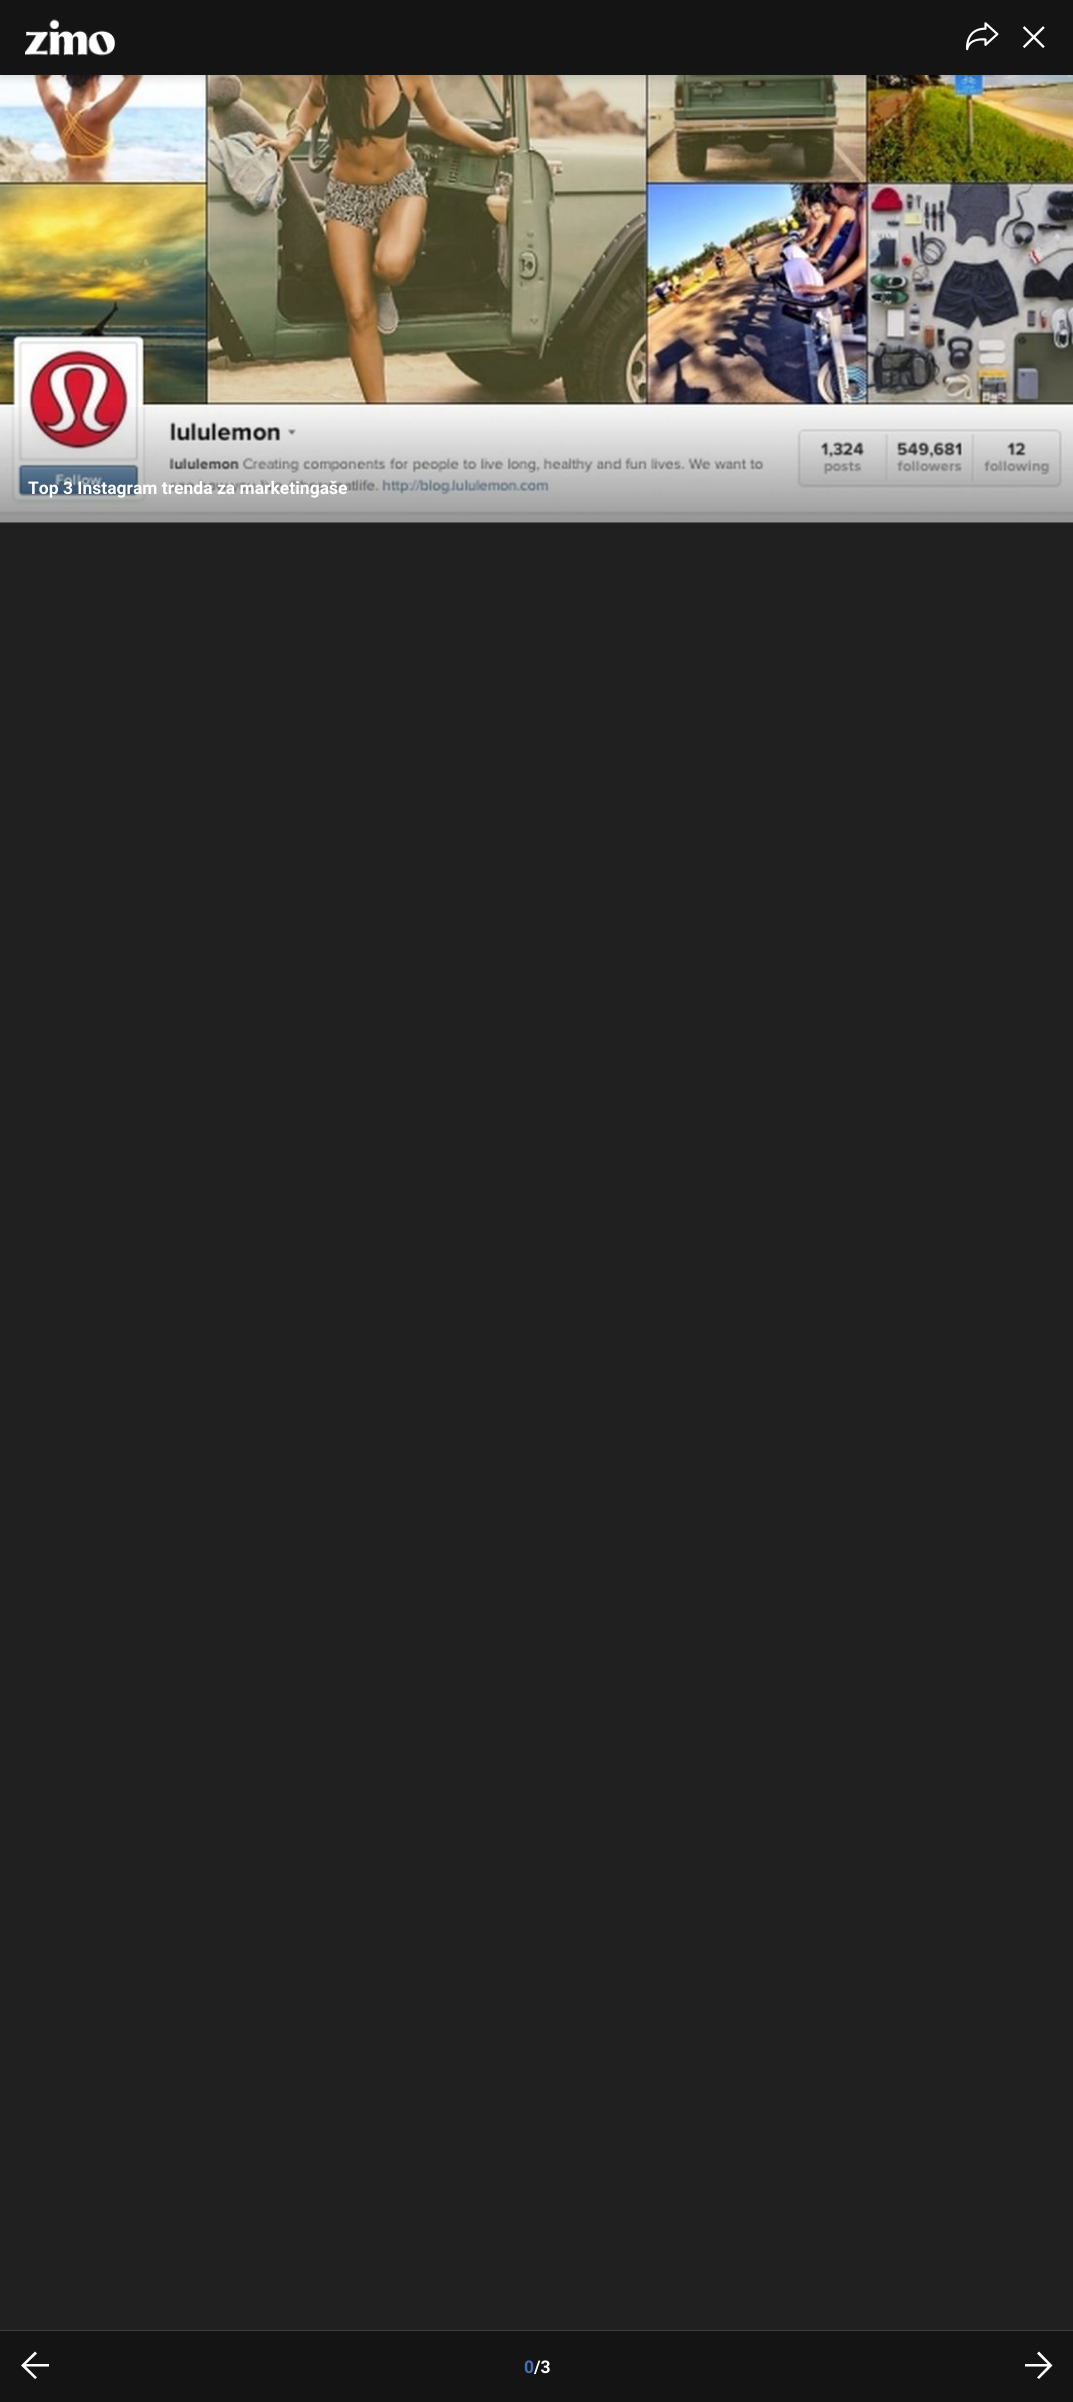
import math
import cairo

surface = cairo.ImageSurface(cairo.FORMAT_RGB24, 1073, 2402)
cr = cairo.Context(surface)
options = cairo.FontOptions()
options.set_hint_metrics(cairo.HINT_METRICS_OFF)
options.set_hint_style(cairo.HINT_STYLE_NONE)
cr.set_font_options(options)
cr.set_miter_limit(4)


def rgb(code):
    cr.set_source_rgb(*(v / 255 for v in bytes.fromhex(code[-6:])))


def rrect(x, y, w, h, r):
    cr.new_sub_path()
    for i, (u, v) in enumerate([(x + w - r, y + h - r), (x + r, y + h - r), (x + r, y + r), (x + w - r, y + r)]):
        cr.arc(u, v, r, i * math.pi / 2, (i + 1) * math.pi / 2)
    cr.close_path()


def soft_shadow(x, y, w, h, r, blur, alpha):
    cr.push_group_with_content(cairo.CONTENT_ALPHA)
    cr.set_operator(cairo.OPERATOR_SOURCE)
    for i in range(15, -16, -2):
        e = blur * i / 6
        if min(w, h) + 2 * e > 0:
            cr.set_source_rgba(0, 0, 0, alpha * math.erfc((i - 1) / 8.5) / 2)
            rrect(x - e, y - e, w + 2 * e, h + 2 * e, max(0, min(r + e + blur * .6, min(w, h) / 2 + e)))
            cr.fill()
    cr.mask(cr.pop_group())


def image(path, x, y, w, h):
    cr.save()
    cr.set_source_surface(cairo.ImageSurface.create_from_png(path), x, y)
    cr.rectangle(x, y, w, h)
    cr.fill()
    cr.restore()


rgb("#202020")
cr.paint()
image("img/4.png", 0, 75, 1073, 448)
rgb("#000000")
soft_shadow(0, 3, 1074, 75, 0, 4.5, 0.15)
rgb("#141414")
cr.rectangle(0, 0, 1073, 75)
cr.fill()
image("img/1.png", 25, 19, 90, 37)
image("img/2.png", 966, 22, 33, 29)
image("img/3.png", 1022, 26, 23, 22)
gradient = cairo.LinearGradient(537, 523, 537, 400)
gradient.add_color_stop_rgba(0, 0.078, 0.078, 0.078, 0.4)
gradient.add_color_stop_rgba(1, 0.078, 0.078, 0.078, 0)
cr.set_source(gradient)
cr.rectangle(0, 407, 1073, 116)
cr.fill()
rgb("#141414")
cr.rectangle(0, 2331, 1073, 71)
cr.fill()
rgb("#3d3d3d")
cr.rectangle(0, 2330, 1073, 1)
cr.fill()
rgb("#ffffff")
cr.new_path()
cr.move_to(35, 2379)
cr.line_to(37, 2377.5)
cr.line_to(26, 2366.5)
cr.line_to(49, 2366.5)
cr.line_to(49, 2364)
cr.line_to(26, 2364)
cr.line_to(37, 2353.5)
cr.line_to(35, 2351.5)
cr.line_to(21, 2365.5)
cr.close_path()
cr.fill()
cr.new_path()
cr.move_to(1039, 2379)
cr.line_to(1037, 2377.5)
cr.line_to(1047.5, 2366.5)
cr.line_to(1025, 2366.5)
cr.line_to(1025, 2364)
cr.line_to(1047.5, 2364)
cr.line_to(1037, 2353.5)
cr.line_to(1039, 2351.5)
cr.line_to(1052.5, 2365.5)
cr.close_path()
cr.fill()
cr.select_font_face("Roboto", cairo.FONT_SLANT_NORMAL, cairo.FONT_WEIGHT_BOLD)
cr.set_font_size(17.5)
cr.move_to(28, 494)
cr.show_text("Top 3 Instagram trenda za marketingaše")
rgb("#426fb5")
cr.move_to(524, 2373)
cr.show_text("0")
rgb("#ffffff")
cr.move_to(534, 2373)
cr.show_text("/3")
surface.write_to_png("page.png")
